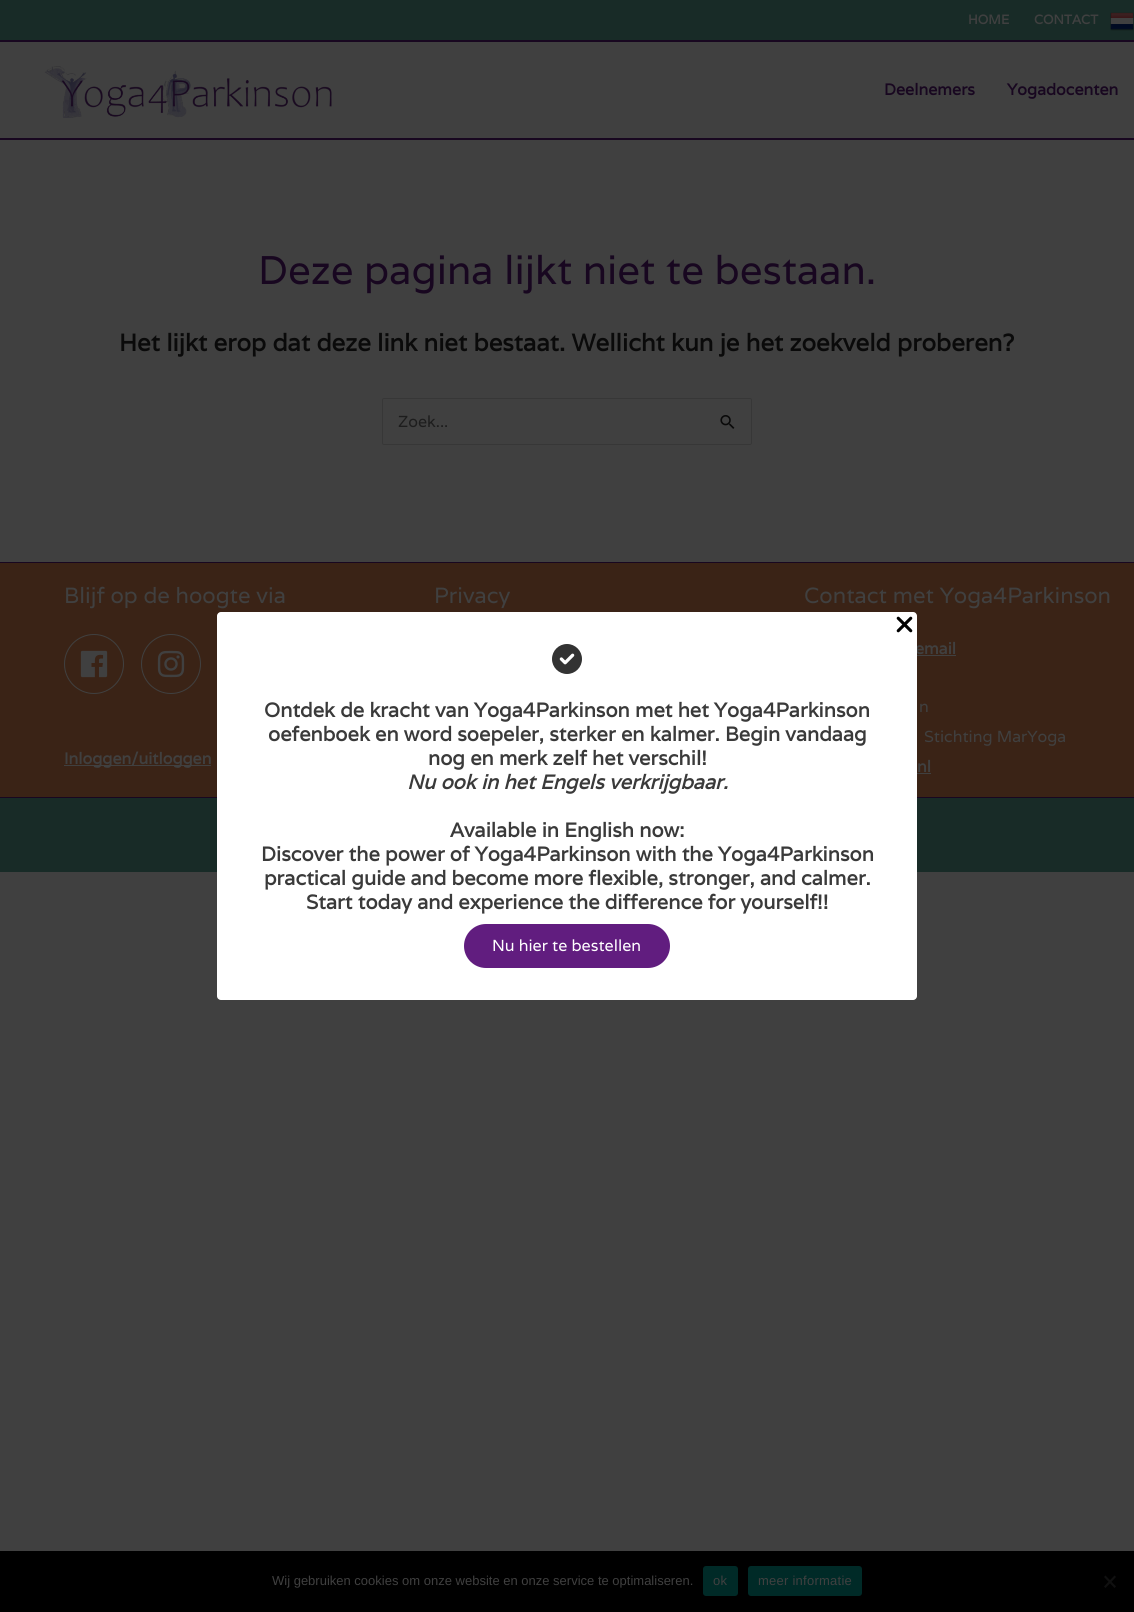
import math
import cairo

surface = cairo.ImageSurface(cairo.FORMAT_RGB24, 1134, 1612)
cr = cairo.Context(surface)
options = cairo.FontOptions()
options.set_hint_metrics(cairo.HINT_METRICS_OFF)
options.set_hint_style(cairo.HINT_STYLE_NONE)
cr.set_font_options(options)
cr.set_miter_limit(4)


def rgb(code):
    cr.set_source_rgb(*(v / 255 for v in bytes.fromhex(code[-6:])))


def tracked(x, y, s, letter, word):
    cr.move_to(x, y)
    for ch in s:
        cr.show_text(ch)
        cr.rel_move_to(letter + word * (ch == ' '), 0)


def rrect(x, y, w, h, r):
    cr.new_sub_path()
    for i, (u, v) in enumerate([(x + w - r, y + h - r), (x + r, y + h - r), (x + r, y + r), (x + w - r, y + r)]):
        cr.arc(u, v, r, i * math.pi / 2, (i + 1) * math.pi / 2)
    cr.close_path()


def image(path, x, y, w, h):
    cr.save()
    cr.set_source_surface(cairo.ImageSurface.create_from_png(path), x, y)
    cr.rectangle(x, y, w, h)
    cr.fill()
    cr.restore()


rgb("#404040")
cr.paint()
rgb("#182b27")
cr.rectangle(0, 0, 1134, 40)
cr.fill()
rgb("#180720")
cr.rectangle(0, 40, 1134, 2)
cr.fill()
image("img/1.png", 1110, 12, 24, 19)
image("img/2.png", 44, 66, 288, 52)
cr.rectangle(0, 138, 1134, 2)
cr.fill()
rrect(382.5, 398.5, 369, 46, 1.5)
rgb("#373737")
cr.set_line_width(1)
cr.stroke()
image("img/3.png", 720, 415, 15, 14)
rgb("#3a2316")
cr.rectangle(0, 563, 1134, 234)
cr.fill()
rgb("#180720")
cr.rectangle(0, 562, 1134, 1)
cr.fill()
cr.arc(94, 664, 29.5, 0, 2 * math.pi)
rgb("#404040")
cr.stroke()
image("img/4.png", 80, 650, 28, 28)
cr.arc(171, 664, 29.5, 0, 2 * math.pi)
cr.stroke()
image("img/5.png", 157, 650, 28, 28)
for x, y, w, h, color in [
    (64, 765, 147, 1, "#404040"),
    (917, 655, 39, 1, "#404040"),
    (917, 773, 14, 1, "#404040"),
    (0, 797, 1134, 1, "#180720"),
    (0, 798, 1134, 74, "#182b27"),
    (0, 1551, 1134, 61, "#000000"),
]:
    rgb(color)
    cr.rectangle(x, y, w, h)
    cr.fill()
rgb("#002a27")
rrect(703, 1566, 35, 30, 3)
cr.fill()
rrect(748, 1566, 114, 30, 3)
cr.fill()
rgb("#101010")
cr.new_path()
cr.move_to(1114.5, 1575.5)
cr.line_to(1116, 1577)
cr.line_to(1105.5, 1588)
cr.line_to(1104, 1586.5)
cr.close_path()
cr.fill()
cr.new_path()
cr.move_to(1104, 1577)
cr.line_to(1105.5, 1575.5)
cr.line_to(1116, 1586.5)
cr.line_to(1114.5, 1588)
cr.close_path()
cr.fill()
cr.select_font_face("Varela", cairo.FONT_SLANT_NORMAL, cairo.FONT_WEIGHT_BOLD)
cr.set_font_size(13)
rgb("#404040")
cr.move_to(968, 24)
cr.show_text("HOME")
cr.move_to(1034, 24)
cr.show_text("CONTACT")
cr.set_font_size(16)
rgb("#180720")
cr.move_to(884, 95)
cr.show_text("Deelnemers")
cr.move_to(1007, 95)
cr.show_text("Yogadocenten")
cr.select_font_face("Varela")
cr.set_font_size(40)
cr.move_to(258, 284)
cr.show_text("Deze pagina lijkt niet te bestaan.")
cr.select_font_face("Varela", cairo.FONT_SLANT_NORMAL, cairo.FONT_WEIGHT_BOLD)
cr.set_font_size(24)
rgb("#0a0a0a")
cr.move_to(119, 351)
cr.show_text("Het lijkt erop dat deze link niet bestaat. Wellicht kun je het zoekveld proberen?")
cr.select_font_face("Varela")
cr.set_font_size(16)
rgb("#1d1d1d")
cr.move_to(398, 427)
cr.show_text("Zoek...")
cr.set_font_size(22)
rgb("#404040")
cr.move_to(64, 603)
cr.show_text("Blijf op de hoogte via")
cr.select_font_face("Varela", cairo.FONT_SLANT_NORMAL, cairo.FONT_WEIGHT_BOLD)
cr.set_font_size(16)
cr.move_to(64, 764)
cr.show_text("Inloggen/uitloggen")
cr.select_font_face("Varela")
cr.set_font_size(22)
cr.move_to(434, 603)
cr.show_text("Privacy")
cr.move_to(804, 603)
cr.show_text("Contact met Yoga4Parkinson")
cr.select_font_face("Varela", cairo.FONT_SLANT_NORMAL, cairo.FONT_WEIGHT_BOLD)
cr.set_font_size(16)
cr.move_to(915, 654)
cr.show_text("email")
cr.select_font_face("Varela")
cr.move_to(919, 712)
cr.show_text("n")
cr.move_to(924, 742)
cr.show_text("Stichting MarYoga")
cr.select_font_face("Varela", cairo.FONT_SLANT_NORMAL, cairo.FONT_WEIGHT_BOLD)
cr.move_to(917, 772)
cr.show_text("nl")
rgb("#ffffff")
rrect(217, 612, 700, 388, 4)
cr.fill()
image("img/6.png", 896, 616, 17, 17)
image("img/7.png", 552, 644, 30, 30)
cr.set_font_size(20)
rgb("#3a3a3a")
for x, y, s in [
    (264, 717, "Ontdek de kracht van Yoga4Parkinson met het Yoga4Parkinson"),
    (268, 741, "oefenboek en word soepeler, sterker en kalmer. Begin vandaag"),
    (428, 765, "nog en merk zelf het verschil!"),
]:
    cr.move_to(x, y)
    cr.show_text(s)
cr.select_font_face("Varela", cairo.FONT_SLANT_ITALIC, cairo.FONT_WEIGHT_BOLD)
cr.move_to(407, 789)
cr.show_text("Nu ook in het Engels verkrijgbaar.")
cr.select_font_face("Varela", cairo.FONT_SLANT_NORMAL, cairo.FONT_WEIGHT_BOLD)
for x, y, s in [
    (450, 837, "Available in English now:"),
    (261, 861, "Discover the power of Yoga4Parkinson with the Yoga4Parkinson"),
    (264, 885, "practical guide and become more flexible, stronger, and calmer."),
    (306, 909, "Start today and experience the difference for yourself!!"),
]:
    cr.move_to(x, y)
    cr.show_text(s)
rgb("#611d7f")
rrect(464, 924, 206, 44, 22)
cr.fill()
cr.select_font_face("Varela")
cr.set_font_size(16)
rgb("#ffffff")
cr.move_to(492, 951)
cr.show_text("Nu hier te bestellen")
cr.select_font_face("Liberation Sans")
cr.set_font_size(13)
rgb("#404040")
cr.move_to(272, 1585)
cr.show_text("Wij gebruiken cookies om onze website en onze service te optimaliseren.")
tracked(713, 1585, "ok", 0.25, 0)
tracked(758, 1585, "meer informatie", 0.25, 0)
surface.write_to_png("page.png")
